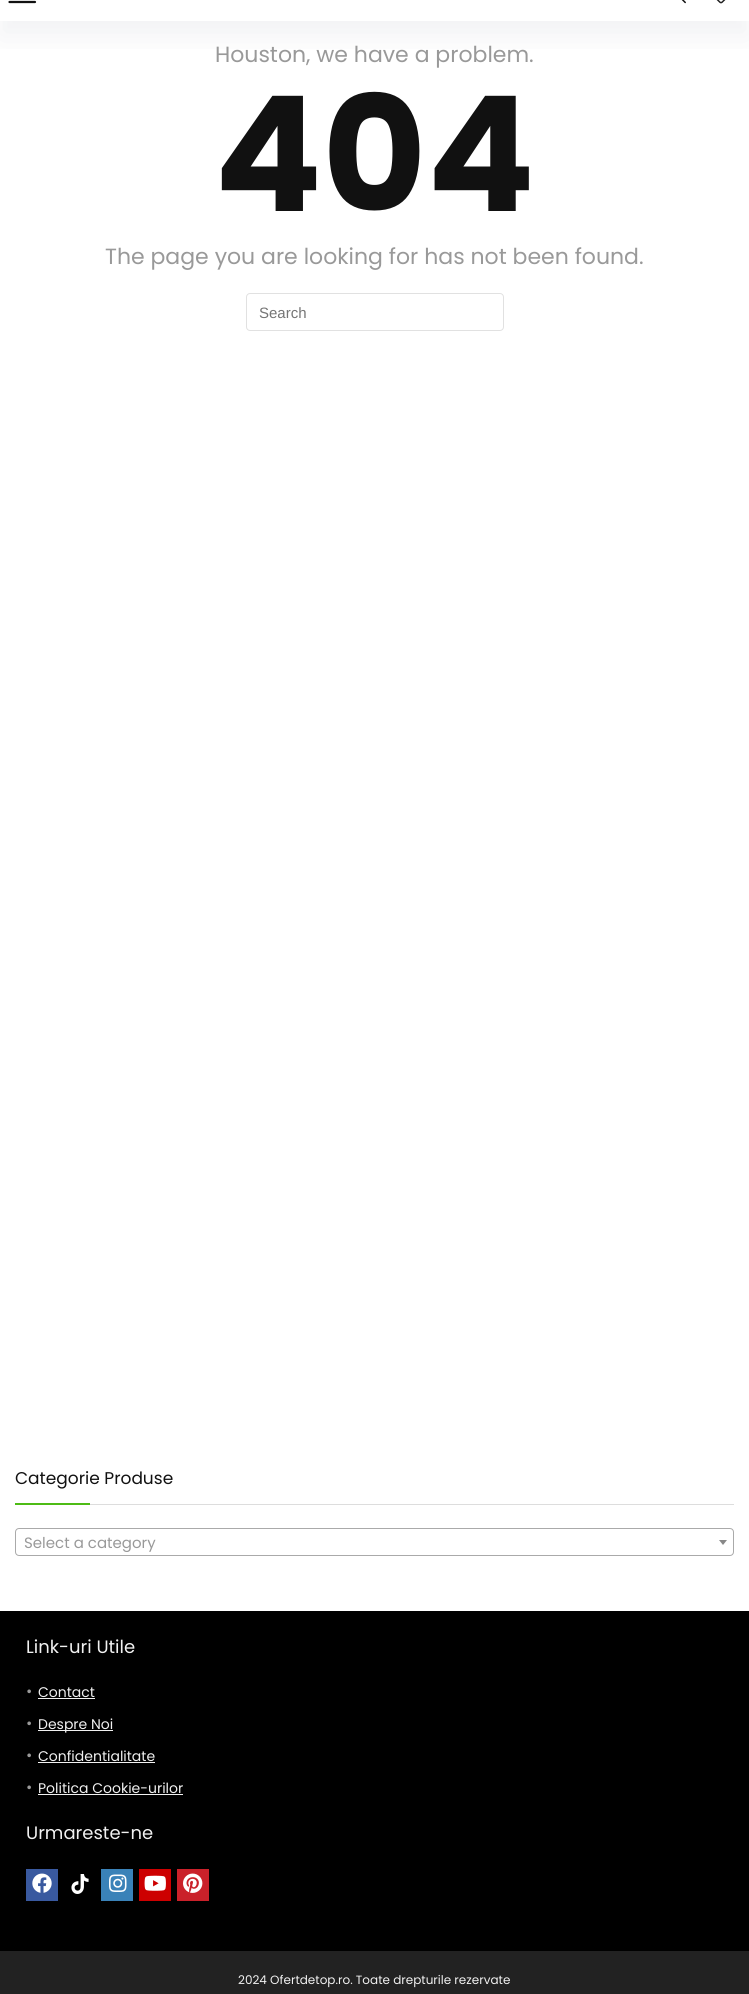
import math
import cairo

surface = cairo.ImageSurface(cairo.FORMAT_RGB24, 749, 1994)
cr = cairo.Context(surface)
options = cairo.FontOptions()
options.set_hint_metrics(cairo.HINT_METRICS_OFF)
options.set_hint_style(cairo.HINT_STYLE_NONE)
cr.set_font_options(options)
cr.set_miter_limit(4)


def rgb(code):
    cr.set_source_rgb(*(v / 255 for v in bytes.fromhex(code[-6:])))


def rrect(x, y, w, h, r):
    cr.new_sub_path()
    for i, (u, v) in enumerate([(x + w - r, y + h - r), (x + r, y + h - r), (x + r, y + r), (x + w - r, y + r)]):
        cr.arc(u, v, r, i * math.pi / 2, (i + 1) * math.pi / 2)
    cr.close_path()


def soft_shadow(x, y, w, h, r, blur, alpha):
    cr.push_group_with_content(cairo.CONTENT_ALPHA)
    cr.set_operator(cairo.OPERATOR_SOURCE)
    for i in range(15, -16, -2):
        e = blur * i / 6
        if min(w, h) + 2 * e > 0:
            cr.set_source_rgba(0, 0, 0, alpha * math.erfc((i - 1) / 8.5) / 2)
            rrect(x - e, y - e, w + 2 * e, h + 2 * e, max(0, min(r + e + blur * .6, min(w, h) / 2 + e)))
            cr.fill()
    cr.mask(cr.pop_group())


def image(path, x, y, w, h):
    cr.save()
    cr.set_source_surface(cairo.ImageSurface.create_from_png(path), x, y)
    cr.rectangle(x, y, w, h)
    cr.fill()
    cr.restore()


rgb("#ffffff")
cr.paint()
cr.save()
cr.rectangle(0, 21, 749, 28)
cr.clip()
rgb("#777b92")
soft_shadow(0, -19, 749, 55, 0, 15, 0.1)
cr.restore()
cr.new_path()
cr.move_to(9.5, 2)
cr.line_to(35, 2)
rgb("#111111")
cr.set_line_width(2.2)
cr.set_line_cap(cairo.LINE_CAP_ROUND)
cr.stroke()
image("img/1.png", 681, 0, 5, 4)
image("img/2.png", 716, 0, 10, 4)
rrect(246.5, 293.5, 257, 37, 3.5)
rgb("#e1e1e1")
cr.set_line_width(1)
cr.set_line_cap(cairo.LINE_CAP_BUTT)
cr.stroke()
rgb("#dddddd")
cr.rectangle(90, 1504, 644, 1)
cr.fill()
rgb("#4dbc15")
cr.rectangle(15, 1503, 75, 2)
cr.fill()
rrect(15.5, 1528.5, 718, 27, 3.5)
rgb("#aaaaaa")
cr.stroke()
rgb("#888888")
cr.new_path()
cr.move_to(719, 1540)
cr.line_to(727, 1540)
cr.line_to(723, 1545)
cr.close_path()
cr.fill()
for x, y, w, h, color in [
    (0, 1611, 749, 340, "#000000"),
    (38, 1698, 57, 1, "#f1f1f1"),
    (38, 1730, 75, 1, "#f1f1f1"),
    (38, 1762, 117, 1, "#f1f1f1"),
    (38, 1794, 145, 1, "#f1f1f1"),
    (26, 1869, 32, 32, "#39599f"),
]:
    rgb(color)
    cr.rectangle(x, y, w, h)
    cr.fill()
image("img/3.png", 32, 1873, 20, 20)
image("img/4.png", 71, 1874, 18, 20)
rgb("#3a82b8")
cr.rectangle(101, 1869, 32, 32)
cr.fill()
image("img/5.png", 109, 1874, 18, 18)
rgb("#cd0000")
cr.rectangle(139, 1869, 32, 32)
cr.fill()
image("img/6.png", 144, 1875, 22, 16)
rgb("#ca212a")
cr.rectangle(177, 1869, 32, 32)
cr.fill()
image("img/7.png", 183, 1873, 20, 20)
rgb("#222222")
cr.rectangle(0, 1951, 749, 43)
cr.fill()
cr.select_font_face("Poppins")
cr.set_font_size(22)
rgb("#999999")
cr.move_to(215, 62)
cr.show_text("Houston, we have a problem.")
cr.select_font_face("Poppins", cairo.FONT_SLANT_NORMAL, cairo.FONT_WEIGHT_BOLD)
cr.set_font_size(160)
rgb("#111111")
cr.move_to(214, 211)
cr.show_text("404")
cr.select_font_face("Poppins")
cr.set_font_size(22)
rgb("#999999")
cr.move_to(105, 264)
cr.show_text("The page you are looking for has not been found.")
cr.select_font_face("Liberation Sans")
cr.set_font_size(15)
rgb("#757575")
cr.move_to(259, 318)
cr.show_text("Search")
cr.select_font_face("Poppins")
cr.set_font_size(17)
rgb("#111111")
cr.move_to(15, 1484)
cr.show_text("Categorie Produse")
cr.set_font_size(15)
rgb("#999999")
cr.move_to(24, 1548)
cr.show_text("Select a category")
cr.set_font_size(18)
rgb("#f1f1f1")
cr.move_to(26, 1653)
cr.show_text("Link-uri Utile")
cr.set_font_size(30)
rgb("#999999")
cr.move_to(26, 1693)
cr.show_text(".")
cr.set_font_size(14)
rgb("#f1f1f1")
cr.move_to(38, 1697)
cr.show_text("Contact")
cr.set_font_size(30)
rgb("#999999")
cr.move_to(26, 1725)
cr.show_text(".")
cr.set_font_size(14)
rgb("#f1f1f1")
cr.move_to(38, 1729)
cr.show_text("Despre Noi")
cr.set_font_size(30)
rgb("#999999")
cr.move_to(26, 1757)
cr.show_text(".")
cr.set_font_size(14)
rgb("#f1f1f1")
cr.move_to(38, 1761)
cr.show_text("Confidentialitate")
cr.set_font_size(30)
rgb("#999999")
cr.move_to(26, 1789)
cr.show_text(".")
cr.set_font_size(14)
rgb("#f1f1f1")
cr.move_to(38, 1793)
cr.show_text("Politica Cookie-urilor")
cr.set_font_size(18)
cr.move_to(26, 1839)
cr.show_text("Urmareste-ne")
cr.set_font_size(12)
cr.move_to(238, 1984)
cr.show_text("2024 Ofertdetop.ro. Toate drepturile rezervate")
surface.write_to_png("page.png")
